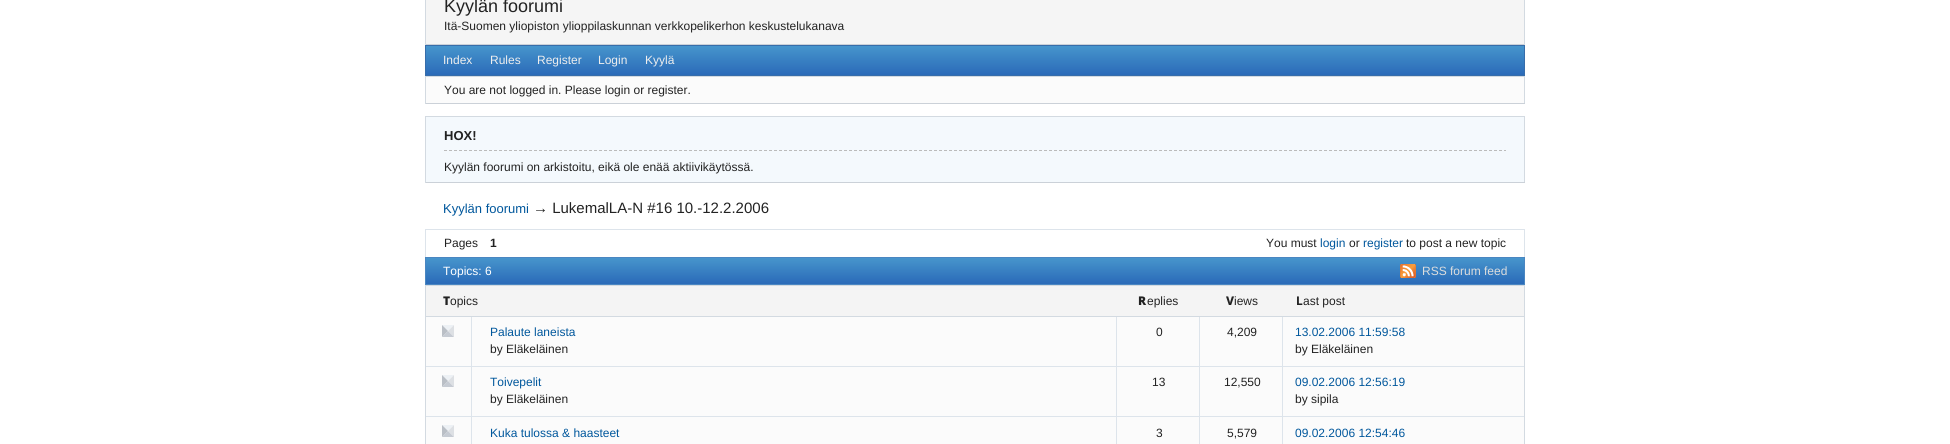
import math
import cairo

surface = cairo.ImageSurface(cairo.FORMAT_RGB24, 1950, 444)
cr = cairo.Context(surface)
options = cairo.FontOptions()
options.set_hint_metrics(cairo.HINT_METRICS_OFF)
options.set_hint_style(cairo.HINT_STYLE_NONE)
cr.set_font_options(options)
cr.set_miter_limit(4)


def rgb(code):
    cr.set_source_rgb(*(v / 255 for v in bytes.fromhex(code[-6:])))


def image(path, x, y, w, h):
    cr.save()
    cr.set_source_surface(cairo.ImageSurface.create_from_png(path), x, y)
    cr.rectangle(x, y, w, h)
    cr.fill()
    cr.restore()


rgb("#ffffff")
cr.paint()
rgb("#f5f5f5")
cr.rectangle(425, 0, 1100, 45)
cr.fill()
rgb("#d3dae1")
cr.new_path()
cr.move_to(1525, 45)
cr.line_to(1525, -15)
cr.curve_to(1525, -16, 1524, -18, 1524, -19)
cr.line_to(1523, -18)
cr.line_to(1524, -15)
cr.line_to(1524, 44)
cr.close_path()
cr.fill()
rgb("#cbd1d8")
cr.new_path()
cr.move_to(1525, 45)
cr.line_to(1524, 44)
cr.line_to(426, 44)
cr.line_to(425, 45)
cr.close_path()
cr.fill()
rgb("#d3dae1")
cr.new_path()
cr.move_to(425, 45)
cr.line_to(426, 44)
cr.line_to(426, -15)
cr.line_to(427, -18)
cr.line_to(426, -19)
cr.curve_to(426, -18, 425, -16, 425, -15)
cr.close_path()
cr.fill()
gradient = cairo.LinearGradient(975, 75, 975, 46)
gradient.add_color_stop_rgba(0, 0.165, 0.416, 0.722, 1)
gradient.add_color_stop_rgba(1, 0.278, 0.584, 0.8, 1)
cr.set_source(gradient)
cr.rectangle(426, 46, 1098, 29)
cr.fill()
cr.rectangle(425.5, 45.5, 1099, 30)
rgb("#376daa")
cr.set_line_width(1)
cr.stroke()
for x, y, w, h, color in [
    (426, 77, 1098, 26, "#fbfbfb"),
    (425, 76, 1100, 1, "#d3dae1"),
    (1524, 76, 1, 28, "#d3dae1"),
    (425, 103, 1100, 1, "#cbd1d8"),
    (425, 76, 1, 28, "#d3dae1"),
    (426, 117, 1098, 65, "#f4f9fd"),
    (425, 116, 1100, 1, "#d3dae1"),
    (1524, 116, 1, 67, "#d3dae1"),
    (425, 182, 1100, 1, "#cbd1d8"),
    (425, 116, 1, 67, "#d3dae1"),
]:
    rgb(color)
    cr.rectangle(x, y, w, h)
    cr.fill()
cr.new_path()
cr.move_to(444, 150.5)
cr.line_to(1506, 150.5)
rgb("#bbbbbb")
cr.set_dash([3, 2])
cr.stroke()
for x, y, w, h, color in [
    (425, 229, 1100, 1, "#dde4eb"),
    (1524, 229, 1, 28, "#dde4eb"),
    (425, 229, 1, 28, "#dde4eb"),
]:
    rgb(color)
    cr.rectangle(x, y, w, h)
    cr.fill()
gradient = cairo.LinearGradient(975, 284, 975, 258)
gradient.add_color_stop_rgba(0, 0.165, 0.416, 0.722, 1)
gradient.add_color_stop_rgba(1, 0.278, 0.584, 0.8, 1)
cr.set_source(gradient)
cr.rectangle(426, 258, 1098, 26)
cr.fill()
cr.rectangle(425.5, 257.5, 1099, 27)
rgb("#4a86c1")
cr.set_dash([])
cr.stroke()
image("img/1.png", 1400, 264, 16, 14)
for x, y, w, h, color in [
    (426, 286, 1098, 30, "#f4f4f4"),
    (425, 285, 1100, 1, "#d3dae1"),
    (1524, 285, 1, 31, "#d3dae1"),
    (425, 285, 1, 31, "#d3dae1"),
    (426, 317, 1098, 127, "#fbfbfb"),
    (425, 316, 1100, 1, "#d3dae1"),
    (1524, 316, 1, 128, "#d3dae1"),
    (425, 316, 1, 128, "#d3dae1"),
]:
    rgb(color)
    cr.rectangle(x, y, w, h)
    cr.fill()
rgb("#edf1f5")
cr.new_path()
cr.move_to(442, 325)
cr.line_to(454, 325)
cr.line_to(448, 331)
cr.close_path()
cr.fill()
rgb("#dde0e4")
cr.new_path()
cr.move_to(454, 325)
cr.line_to(454, 337)
cr.line_to(448, 331)
cr.close_path()
cr.fill()
rgb("#c6cbd3")
cr.new_path()
cr.move_to(454, 337)
cr.line_to(442, 337)
cr.line_to(448, 331)
cr.close_path()
cr.fill()
rgb("#babfc6")
cr.new_path()
cr.move_to(442, 337)
cr.line_to(442, 325)
cr.line_to(448, 331)
cr.close_path()
cr.fill()
for x, y, w, h, color in [
    (471, 317, 1, 49, "#dde4eb"),
    (1116, 317, 1, 49, "#dde4eb"),
    (1199, 317, 1, 49, "#dde4eb"),
    (1282, 317, 1, 49, "#dde4eb"),
    (426, 366, 1098, 1, "#dde4eb"),
]:
    rgb(color)
    cr.rectangle(x, y, w, h)
    cr.fill()
rgb("#edf1f5")
cr.new_path()
cr.move_to(442, 375)
cr.line_to(454, 375)
cr.line_to(448, 381)
cr.close_path()
cr.fill()
rgb("#dde0e4")
cr.new_path()
cr.move_to(454, 375)
cr.line_to(454, 387)
cr.line_to(448, 381)
cr.close_path()
cr.fill()
rgb("#c6cbd3")
cr.new_path()
cr.move_to(454, 387)
cr.line_to(442, 387)
cr.line_to(448, 381)
cr.close_path()
cr.fill()
rgb("#babfc6")
cr.new_path()
cr.move_to(442, 387)
cr.line_to(442, 375)
cr.line_to(448, 381)
cr.close_path()
cr.fill()
for x, y, w, h, color in [
    (471, 367, 1, 49, "#dde4eb"),
    (1116, 367, 1, 49, "#dde4eb"),
    (1199, 367, 1, 49, "#dde4eb"),
    (1282, 367, 1, 49, "#dde4eb"),
    (426, 416, 1098, 1, "#dde4eb"),
]:
    rgb(color)
    cr.rectangle(x, y, w, h)
    cr.fill()
rgb("#edf1f5")
cr.new_path()
cr.move_to(442, 425)
cr.line_to(454, 425)
cr.line_to(448, 431)
cr.close_path()
cr.fill()
rgb("#dde0e4")
cr.new_path()
cr.move_to(454, 425)
cr.line_to(454, 437)
cr.line_to(448, 431)
cr.close_path()
cr.fill()
rgb("#c6cbd3")
cr.new_path()
cr.move_to(454, 437)
cr.line_to(442, 437)
cr.line_to(448, 431)
cr.close_path()
cr.fill()
rgb("#babfc6")
cr.new_path()
cr.move_to(442, 437)
cr.line_to(442, 425)
cr.line_to(448, 431)
cr.close_path()
cr.fill()
for x, y, w, h, color in [
    (471, 417, 1, 27, "#dde4eb"),
    (1116, 417, 1, 27, "#dde4eb"),
    (1199, 417, 1, 27, "#dde4eb"),
    (1282, 417, 1, 27, "#dde4eb"),
]:
    rgb(color)
    cr.rectangle(x, y, w, h)
    cr.fill()
cr.select_font_face("Liberation Sans")
cr.set_font_size(18)
rgb("#222222")
cr.move_to(444, 12)
cr.show_text("Kyylän foorumi")
cr.set_font_size(12)
cr.move_to(444, 30)
cr.show_text("Itä-Suomen yliopiston ylioppilaskunnan verkkopelikerhon keskustelukanava")
rgb("#eeeeee")
for x, y, s in [
    (443, 64, "Index"),
    (490, 64, "Rules"),
    (537, 64, "Register"),
    (598, 64, "Login"),
    (645, 64, "Kyylä"),
]:
    cr.move_to(x, y)
    cr.show_text(s)
rgb("#222222")
cr.move_to(444, 94)
cr.show_text("You are not logged in. Please login or register.")
cr.select_font_face("Liberation Sans", cairo.FONT_SLANT_NORMAL, cairo.FONT_WEIGHT_BOLD)
cr.set_font_size(13)
cr.move_to(444, 140)
cr.show_text("HOX!")
cr.select_font_face("Liberation Sans")
cr.set_font_size(12)
cr.move_to(444, 171)
cr.show_text("Kyylän foorumi on arkistoitu, eikä ole enää aktiivikäytössä.")
cr.set_font_size(13)
rgb("#00579c")
cr.move_to(443, 213)
cr.show_text("Kyylän foorumi")
cr.set_font_size(15)
rgb("#222222")
cr.move_to(533, 213)
cr.show_text("→ LukemalLA-N #16 10.-12.2.2006")
cr.set_font_size(12)
cr.move_to(444, 247)
cr.show_text("Pages")
cr.select_font_face("Liberation Sans", cairo.FONT_SLANT_NORMAL, cairo.FONT_WEIGHT_BOLD)
cr.move_to(490, 247)
cr.show_text("1")
cr.select_font_face("Liberation Sans")
cr.move_to(1266, 247)
cr.show_text("You must")
rgb("#00579c")
cr.move_to(1320, 247)
cr.show_text("login")
rgb("#222222")
cr.move_to(1349, 247)
cr.show_text("or")
rgb("#00579c")
cr.move_to(1363, 247)
cr.show_text("register")
rgb("#222222")
cr.move_to(1406, 247)
cr.show_text("to post a new topic")
rgb("#ffffff")
cr.move_to(443, 275)
cr.show_text("Topics: 6")
rgb("#dddddd")
cr.move_to(1422, 275)
cr.show_text("RSS forum feed")
cr.select_font_face("Noto Sans Black")
rgb("#222222")
cr.move_to(443, 305)
cr.show_text("T")
cr.select_font_face("Liberation Sans")
cr.move_to(450, 305)
cr.show_text("opics")
cr.select_font_face("Noto Sans Black")
cr.move_to(1138, 305)
cr.show_text("R")
cr.select_font_face("Liberation Sans")
cr.move_to(1147, 305)
cr.show_text("eplies")
cr.select_font_face("Noto Sans ExtraBold")
cr.move_to(1226, 305)
cr.show_text("V")
cr.select_font_face("Liberation Sans")
cr.move_to(1234, 305)
cr.show_text("iews")
cr.select_font_face("Noto Sans", cairo.FONT_SLANT_NORMAL, cairo.FONT_WEIGHT_BOLD)
cr.move_to(1296, 305)
cr.show_text("L")
cr.select_font_face("Liberation Sans")
cr.move_to(1303, 305)
cr.show_text("ast post")
rgb("#00579c")
cr.move_to(490, 336)
cr.show_text("Palaute laneista")
rgb("#222222")
for x, y, s in [
    (490, 353, "by Eläkeläinen"),
    (1156, 336, "0"),
    (1227, 336, "4,209"),
]:
    cr.move_to(x, y)
    cr.show_text(s)
rgb("#00579c")
cr.move_to(1295, 336)
cr.show_text("13.02.2006 11:59:58")
rgb("#222222")
cr.move_to(1295, 353)
cr.show_text("by Eläkeläinen")
rgb("#00579c")
cr.move_to(490, 386)
cr.show_text("Toivepelit")
rgb("#222222")
for x, y, s in [
    (490, 403, "by Eläkeläinen"),
    (1152, 386, "13"),
    (1224, 386, "12,550"),
]:
    cr.move_to(x, y)
    cr.show_text(s)
rgb("#00579c")
cr.move_to(1295, 386)
cr.show_text("09.02.2006 12:56:19")
rgb("#222222")
cr.move_to(1295, 403)
cr.show_text("by sipila")
rgb("#00579c")
cr.move_to(490, 437)
cr.show_text("Kuka tulossa & haasteet")
rgb("#222222")
cr.move_to(1156, 437)
cr.show_text("3")
cr.move_to(1227, 437)
cr.show_text("5,579")
rgb("#00579c")
cr.move_to(1295, 437)
cr.show_text("09.02.2006 12:54:46")
surface.write_to_png("page.png")
